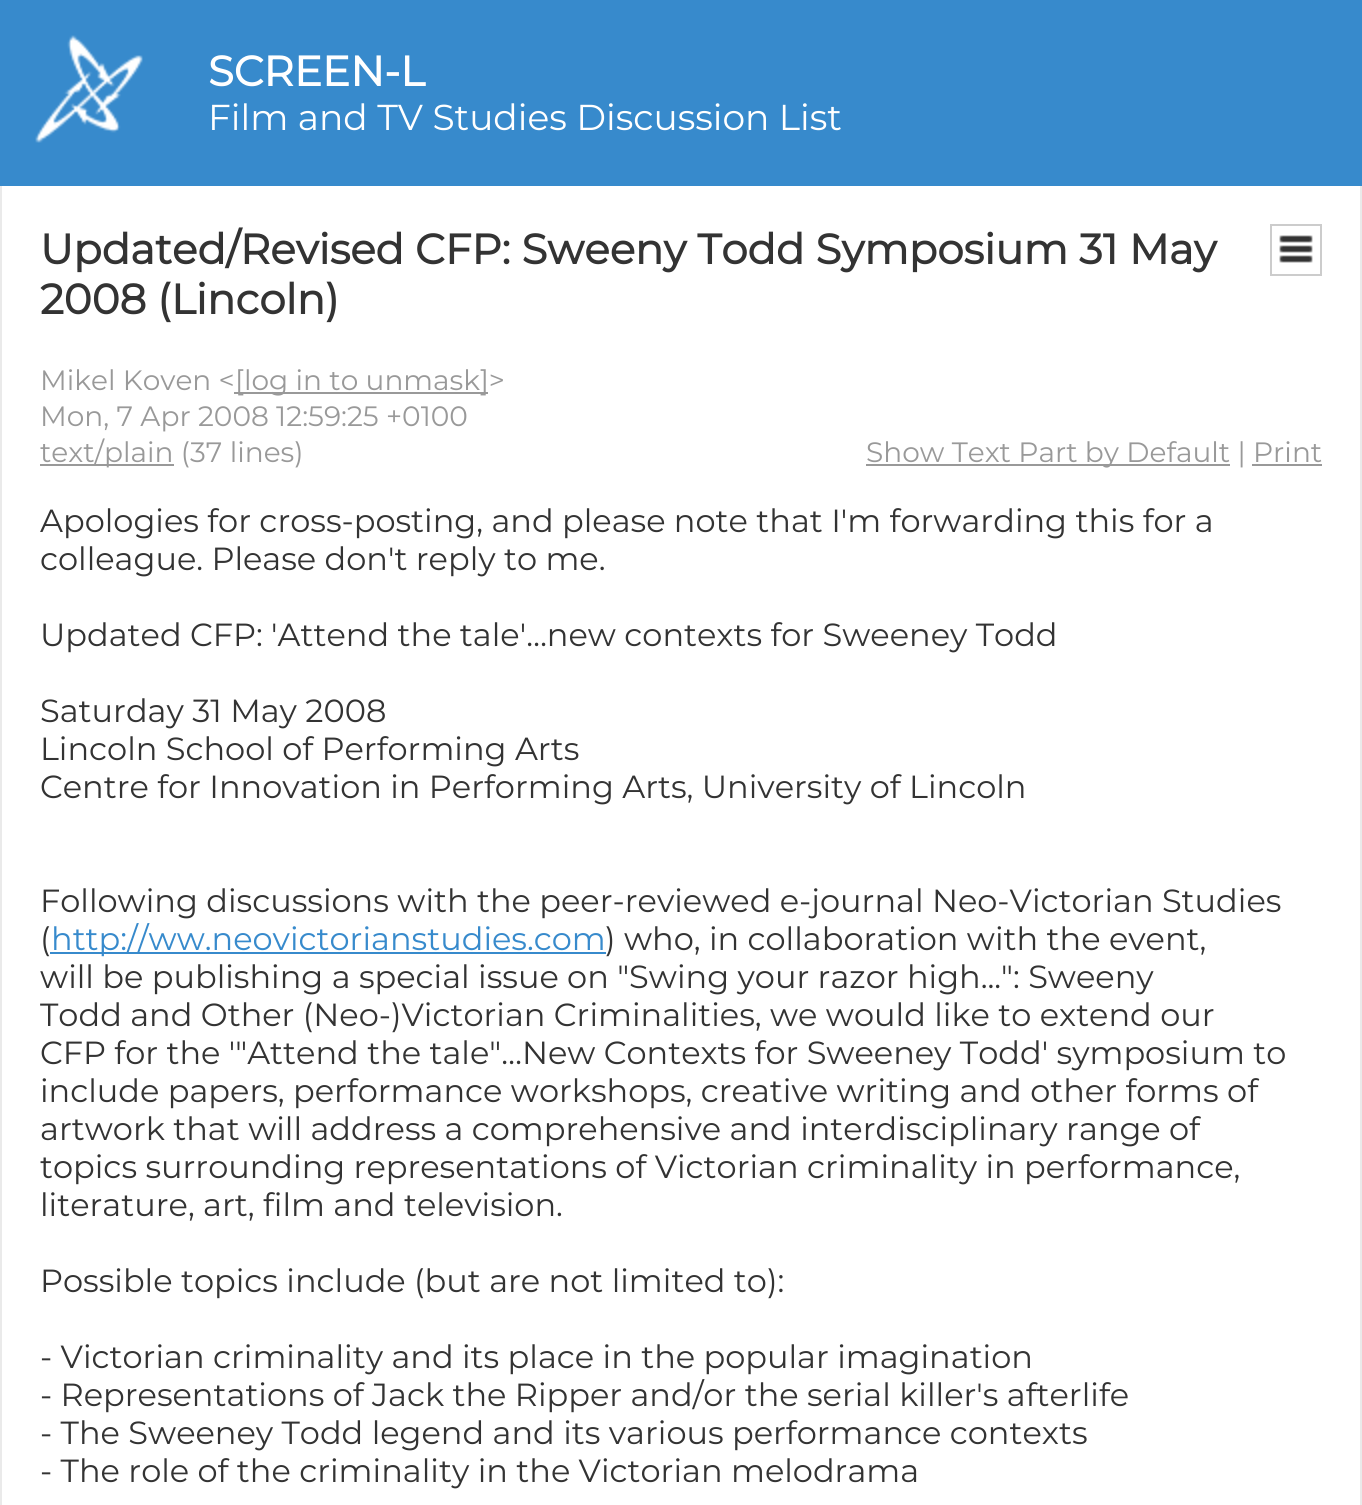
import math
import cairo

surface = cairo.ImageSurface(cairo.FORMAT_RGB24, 1362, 1505)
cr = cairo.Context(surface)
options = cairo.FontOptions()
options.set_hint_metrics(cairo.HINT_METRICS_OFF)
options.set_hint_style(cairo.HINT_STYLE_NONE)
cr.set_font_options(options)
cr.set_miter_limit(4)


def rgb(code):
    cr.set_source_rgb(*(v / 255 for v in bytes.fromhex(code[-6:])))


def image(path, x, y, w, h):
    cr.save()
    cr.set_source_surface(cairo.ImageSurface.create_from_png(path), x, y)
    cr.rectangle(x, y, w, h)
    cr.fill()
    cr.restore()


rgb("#378acc")
cr.paint()
image("img/1.png", 35, 35, 108, 108)
for x, y, w, h, color in [
    (2, 186, 1358, 1319, "#ffffff"),
    (1360, 186, 2, 1319, "#eaeaea"),
    (0, 186, 2, 1319, "#eaeaea"),
]:
    rgb(color)
    cr.rectangle(x, y, w, h)
    cr.fill()
cr.rectangle(1271, 225, 50, 50)
rgb("#cccccc")
cr.stroke()
image("img/2.png", 1279, 235, 34, 28)
for x, y, w, h, color in [
    (234, 392, 254, 2, "#999999"),
    (40, 464, 134, 2, "#999999"),
    (866, 464, 364, 2, "#999999"),
    (1252, 464, 70, 2, "#999999"),
    (50, 952, 556, 2, "#378acc"),
]:
    rgb(color)
    cr.rectangle(x, y, w, h)
    cr.fill()
cr.select_font_face("Montserrat", cairo.FONT_SLANT_NORMAL, cairo.FONT_WEIGHT_BOLD)
cr.set_font_size(42)
rgb("#ffffff")
cr.move_to(208, 86)
cr.show_text("SCREEN-L")
cr.select_font_face("Montserrat Thin")
cr.set_font_size(36)
cr.move_to(208, 130)
cr.show_text("Film and TV Studies Discussion List")
cr.select_font_face("Montserrat", cairo.FONT_SLANT_NORMAL, cairo.FONT_WEIGHT_BOLD)
cr.set_font_size(42)
rgb("#333333")
cr.move_to(40, 264)
cr.show_text("Updated/Revised CFP: Sweeny Todd Symposium 31 May")
cr.move_to(40, 314)
cr.show_text("2008 (Lincoln)")
cr.select_font_face("Montserrat Thin")
cr.set_font_size(28)
rgb("#999999")
for x, y, s in [
    (40, 390, "Mikel Koven <"),
    (235, 390, "[log in to unmask]>"),
    (40, 426, "Mon, 7 Apr 2008 12:59:25 +0100"),
    (40, 462, "text/plain (37 lines)"),
    (866, 462, "Show Text Part by Default | Print"),
]:
    cr.move_to(x, y)
    cr.show_text(s)
cr.set_font_size(32)
rgb("#333333")
for x, y, s in [
    (40, 532, "Apologies for cross-posting, and please note that I'm forwarding this for a"),
    (40, 570, "colleague. Please don't reply to me."),
    (40, 646, "Updated CFP: 'Attend the tale'…new contexts for Sweeney Todd"),
    (40, 722, "Saturday 31 May 2008"),
    (40, 760, "Lincoln School of Performing Arts"),
    (40, 798, "Centre for Innovation in Performing Arts, University of Lincoln"),
    (40, 912, "Following discussions with the peer-reviewed e-journal Neo-Victorian Studies"),
    (40, 950, "("),
]:
    cr.move_to(x, y)
    cr.show_text(s)
rgb("#378acc")
cr.move_to(51, 950)
cr.show_text("http://ww.neovictorianstudies.com")
rgb("#333333")
for x, y, s in [
    (605, 950, ") who, in collaboration with the event,"),
    (40, 988, "will be publishing a special issue on \"Swing your razor high...\": Sweeny"),
    (40, 1026, "Todd and Other (Neo-)Victorian Criminalities, we would like to extend our"),
    (40, 1064, "CFP for the '\"Attend the tale\"…New Contexts for Sweeney Todd' symposium to"),
    (40, 1102, "include papers, performance workshops, creative writing and other forms of"),
    (40, 1140, "artwork that will address a comprehensive and interdisciplinary range of"),
    (40, 1178, "topics surrounding representations of Victorian criminality in performance,"),
    (40, 1216, "literature, art, film and television."),
    (40, 1292, "Possible topics include (but are not limited to):"),
    (40, 1368, "- Victorian criminality and its place in the popular imagination"),
    (40, 1406, "- Representations of Jack the Ripper and/or the serial killer's afterlife"),
    (40, 1444, "- The Sweeney Todd legend and its various performance contexts"),
    (40, 1482, "- The role of the criminality in the Victorian melodrama"),
]:
    cr.move_to(x, y)
    cr.show_text(s)
surface.write_to_png("page.png")
